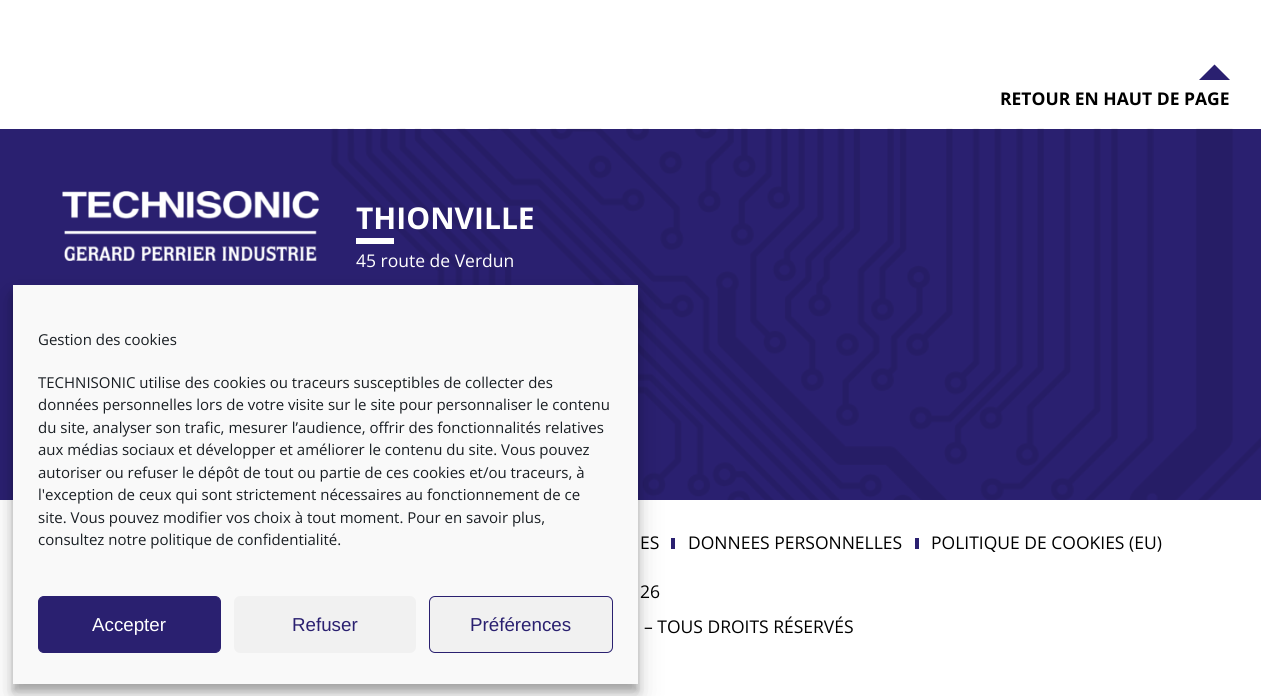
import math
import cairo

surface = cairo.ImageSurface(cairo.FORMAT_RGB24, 1261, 696)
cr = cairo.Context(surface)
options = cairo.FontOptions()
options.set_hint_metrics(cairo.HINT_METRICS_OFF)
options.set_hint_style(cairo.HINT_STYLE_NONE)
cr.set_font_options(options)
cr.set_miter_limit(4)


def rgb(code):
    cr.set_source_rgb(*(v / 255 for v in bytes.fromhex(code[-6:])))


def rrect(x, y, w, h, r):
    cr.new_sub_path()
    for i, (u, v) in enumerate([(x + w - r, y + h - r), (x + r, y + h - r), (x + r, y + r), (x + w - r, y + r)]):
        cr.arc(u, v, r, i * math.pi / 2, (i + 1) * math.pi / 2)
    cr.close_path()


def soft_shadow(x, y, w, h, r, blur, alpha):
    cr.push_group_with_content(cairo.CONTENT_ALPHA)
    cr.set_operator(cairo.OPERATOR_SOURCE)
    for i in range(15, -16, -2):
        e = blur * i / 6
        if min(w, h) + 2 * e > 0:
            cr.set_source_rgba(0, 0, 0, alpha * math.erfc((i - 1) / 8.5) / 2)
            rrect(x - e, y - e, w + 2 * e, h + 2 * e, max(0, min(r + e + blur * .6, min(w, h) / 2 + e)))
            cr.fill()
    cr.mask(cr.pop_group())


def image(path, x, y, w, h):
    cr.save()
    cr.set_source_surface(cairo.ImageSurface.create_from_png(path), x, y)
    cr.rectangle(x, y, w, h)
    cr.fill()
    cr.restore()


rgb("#ffffff")
cr.paint()
rgb("#2a2070")
cr.new_path()
cr.move_to(1230, 80)
cr.line_to(1199, 80)
cr.line_to(1214.5, 64.5)
cr.close_path()
cr.fill()
cr.rectangle(0, 129, 1261, 371)
cr.fill()
image("img/1.png", 331, 128, 930, 372)
rgb("#000000")
soft_shadow(13, 293, 625, 398, 0, 4, 0.23)
image("img/2.png", 62, 191, 257, 70)
rgb("#2a2070")
cr.rectangle(671, 538, 4, 11)
cr.fill()
rgb("#000000")
soft_shadow(13, 298, 625, 398, 0, 12.5, 0.19)
rgb("#f9f9f9")
cr.rectangle(13, 285, 625, 399)
cr.fill()
rgb("#2a2070")
rrect(38.5, 596.5, 182, 56, 5.5)
cr.fill_preserve()
cr.set_line_width(1)
cr.stroke()
rgb("#f1f1f1")
rrect(234, 596, 182, 57, 6)
cr.fill()
rrect(429.5, 596.5, 183, 56, 5.5)
cr.fill_preserve()
rgb("#2a2070")
cr.stroke()
rgb("#ffffff")
cr.rectangle(356, 238, 38, 6)
cr.fill()
rgb("#2a2070")
cr.rectangle(915, 538, 4, 11)
cr.fill()
cr.select_font_face("Open Sans", cairo.FONT_SLANT_NORMAL, cairo.FONT_WEIGHT_BOLD)
cr.set_font_size(17.5)
rgb("#000000")
cr.move_to(1000, 105)
cr.show_text("RETOUR EN HAUT DE PAGE")
cr.select_font_face("Open Sans")
cr.set_font_size(15)
rgb("#191e23")
for x, y, s in [
    (38, 345, "Gestion des cookies"),
    (38, 388, "TECHNISONIC utilise des cookies ou traceurs susceptibles de collecter des"),
    (38, 410, "données personnelles lors de votre visite sur le site pour personnaliser le contenu"),
    (38, 433, "du site, analyser son trafic, mesurer l’audience, offrir des fonctionnalités relatives"),
    (38, 455, "aux médias sociaux et développer et améliorer le contenu du site. Vous pouvez"),
    (38, 478, "autoriser ou refuser le dépôt de tout ou partie de ces cookies et/ou traceurs, à"),
    (38, 500, "l'exception de ceux qui sont strictement nécessaires au fonctionnement de ce"),
    (38, 523, "site. Vous pouvez modifier vos choix à tout moment. Pour en savoir plus,"),
    (38, 545, "consultez notre politique de confidentialité."),
]:
    cr.move_to(x, y)
    cr.show_text(s)
cr.select_font_face("Liberation Sans")
cr.set_font_size(18.75)
rgb("#ffffff")
cr.move_to(92, 631)
cr.show_text("Accepter")
rgb("#2a2070")
cr.move_to(292, 631)
cr.show_text("Refuser")
cr.move_to(470, 631)
cr.show_text("Préférences")
cr.select_font_face("Open Sans", cairo.FONT_SLANT_NORMAL, cairo.FONT_WEIGHT_BOLD)
cr.set_font_size(30)
rgb("#ffffff")
cr.move_to(356, 229)
cr.show_text("THIONVILLE")
cr.select_font_face("Open Sans")
cr.set_font_size(17.5)
cr.move_to(356, 267)
cr.show_text("45 route de Verdun")
rgb("#000000")
for x, y, s in [
    (640, 549, "ES"),
    (688, 549, "DONNEES PERSONNELLES"),
    (931, 549, "POLITIQUE DE COOKIES (EU)"),
    (640, 598, "26"),
    (644, 633, "– TOUS DROITS RÉSERVÉS"),
]:
    cr.move_to(x, y)
    cr.show_text(s)
surface.write_to_png("page.png")
